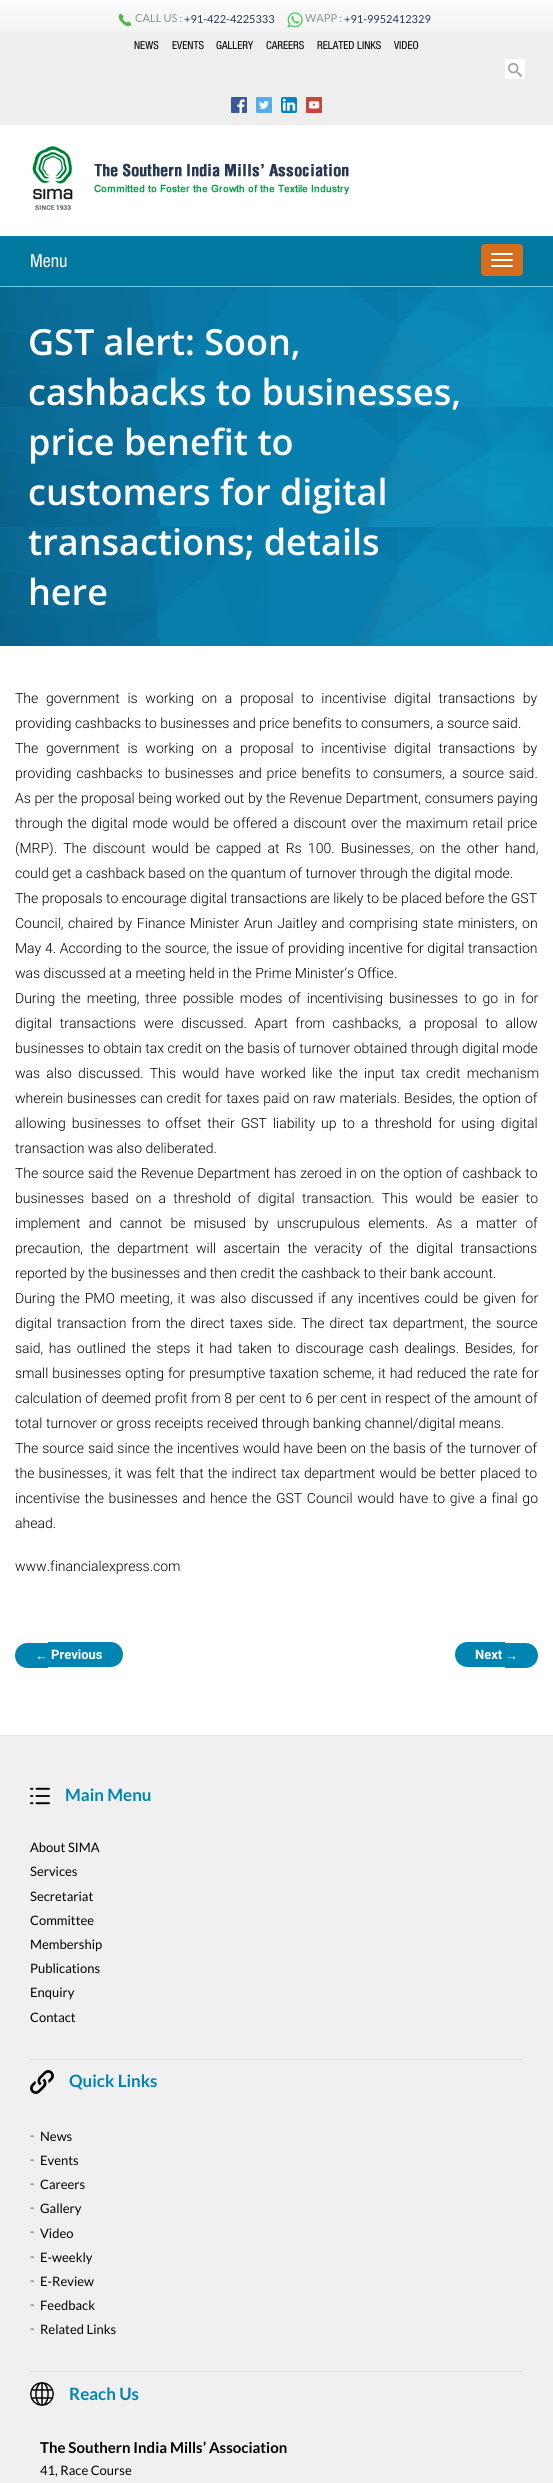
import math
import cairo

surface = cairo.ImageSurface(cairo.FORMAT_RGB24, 553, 2483)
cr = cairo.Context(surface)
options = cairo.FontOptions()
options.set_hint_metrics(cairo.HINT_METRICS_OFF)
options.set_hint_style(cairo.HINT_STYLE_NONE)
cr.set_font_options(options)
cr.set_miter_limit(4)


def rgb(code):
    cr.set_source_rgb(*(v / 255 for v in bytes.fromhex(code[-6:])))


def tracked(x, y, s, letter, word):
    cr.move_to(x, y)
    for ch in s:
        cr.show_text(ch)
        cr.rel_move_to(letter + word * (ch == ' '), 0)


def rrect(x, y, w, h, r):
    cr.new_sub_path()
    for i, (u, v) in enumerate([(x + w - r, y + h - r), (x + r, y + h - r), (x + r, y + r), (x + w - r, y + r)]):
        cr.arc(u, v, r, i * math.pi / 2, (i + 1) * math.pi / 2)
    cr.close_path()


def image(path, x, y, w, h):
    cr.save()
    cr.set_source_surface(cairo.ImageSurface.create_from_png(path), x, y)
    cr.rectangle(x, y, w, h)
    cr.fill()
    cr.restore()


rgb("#ffffff")
cr.paint()
rgb("#eeeeee")
cr.rectangle(0, 32, 553, 93)
cr.fill()
image("img/1.png", 0, 0, 553, 32)
image("img/2.png", 118, 13, 14, 14)
image("img/3.png", 287, 12, 16, 16)
rgb("#ffffff")
cr.new_path()
cr.move_to(505, 59)
cr.line_to(523, 59)
cr.curve_to(524, 59, 525, 60, 525, 61)
cr.line_to(525, 77)
cr.curve_to(525, 78, 524, 79, 523, 79)
cr.line_to(505, 79)
cr.close_path()
cr.fill()
image("img/4.png", 508, 62, 14, 15)
image("img/5.png", 231, 97, 16, 16)
image("img/6.png", 256, 97, 16, 16)
image("img/7.png", 281, 97, 16, 16)
image("img/8.png", 306, 97, 16, 16)
image("img/9.png", 32, 146, 317, 64)
rgb("#00789f")
cr.rectangle(0, 236, 553, 50)
cr.fill()
rgb("#6ecee8")
cr.rectangle(0, 286, 553, 1)
cr.fill()
rgb("#d46e1e")
rrect(481, 244, 42, 32, 4)
cr.fill()
rgb("#ffffff")
rrect(491, 253, 22, 2, 1)
cr.fill()
rrect(491, 259, 22, 2, 1)
cr.fill()
rrect(491, 265, 22, 2, 1)
cr.fill()
image("img/10.png", 0, 287, 553, 359)
rgb("#0085b2")
cr.new_path()
cr.move_to(27.5, 1643)
cr.line_to(48, 1643)
cr.line_to(48, 1668)
cr.line_to(27.5, 1668)
cr.curve_to(20.5, 1668, 15, 1662.5, 15, 1655.5)
cr.curve_to(15, 1648.5, 20.5, 1643, 27.5, 1643)
cr.close_path()
cr.fill()
cr.new_path()
cr.move_to(48, 1642)
cr.line_to(110.5, 1642)
cr.curve_to(117.5, 1642, 123, 1647.5, 123, 1654.5)
cr.curve_to(123, 1661.5, 117.5, 1667, 110.5, 1667)
cr.line_to(48, 1667)
cr.close_path()
cr.fill()
cr.new_path()
cr.move_to(467.5, 1642)
cr.line_to(505, 1642)
cr.line_to(505, 1667)
cr.line_to(467.5, 1667)
cr.curve_to(460.5, 1667, 455, 1661.5, 455, 1654.5)
cr.curve_to(455, 1647.5, 460.5, 1642, 467.5, 1642)
cr.close_path()
cr.fill()
cr.new_path()
cr.move_to(505, 1643)
cr.line_to(525.5, 1643)
cr.curve_to(532.5, 1643, 538, 1648.5, 538, 1655.5)
cr.curve_to(538, 1662.5, 532.5, 1668, 525.5, 1668)
cr.line_to(505, 1668)
cr.close_path()
cr.fill()
for x, y, w, h, color in [
    (0, 1736, 553, 747, "#f0f0f0"),
    (0, 1735, 553, 1, "#e0e0e0"),
    (30, 2059, 493, 1, "#e0e0e0"),
]:
    rgb(color)
    cr.rectangle(x, y, w, h)
    cr.fill()
image("img/11.png", 30, 1787, 20, 18)
cr.rectangle(30, 2371, 493, 1)
cr.fill()
image("img/12.png", 30, 2070, 24, 24)
image("img/13.png", 30, 2382, 24, 24)
cr.select_font_face("Lato")
cr.set_font_size(11)
rgb("#839896")
cr.move_to(135, 22)
cr.show_text("CALL US :")
rgb("#273952")
cr.move_to(184, 23)
cr.show_text("+91-422-4225333")
rgb("#839896")
cr.move_to(305, 22)
cr.show_text("WAPP :")
rgb("#273952")
cr.move_to(344, 23)
cr.show_text("+91-9952412329")
cr.select_font_face("Helvetica Neue")
rgb("#000000")
for x, y, s in [
    (134, 49, "NEWS"),
    (172, 49, "EVENTS"),
    (216, 49, "GALLERY"),
    (266, 49, "CAREERS"),
    (317, 49, "RELATED LINKS"),
    (394, 49, "VIDEO"),
]:
    cr.move_to(x, y)
    cr.show_text(s)
cr.set_font_size(18)
rgb("#ffffff")
cr.move_to(30, 267)
cr.show_text("Menu")
cr.select_font_face("Open Sans SemiBold")
cr.set_font_size(36)
for x, y, s in [
    (28, 355, "GST alert: Soon,"),
    (28, 405, "cashbacks to businesses,"),
    (28, 455, "price benefit to"),
    (28, 505, "customers for digital"),
    (28, 555, "transactions; details"),
    (28, 605, "here"),
]:
    cr.move_to(x, y)
    cr.show_text(s)
cr.select_font_face("Roboto Light")
cr.set_font_size(14)
rgb("#000000")
tracked(15, 703, "The government is working on a proposal to incentivise digital transactions by", 0, 4.25)
cr.move_to(15, 728)
cr.show_text("providing cashbacks to businesses and price benefits to consumers, a source said.")
tracked(15, 753, "The government is working on a proposal to incentivise digital transactions by", 0, 4.25)
tracked(15, 778, "providing cashbacks to businesses and price benefits to consumers, a source said.", 0, 1.5)
tracked(15, 803, "As per the proposal being worked out by the Revenue Department, consumers paying", 0, 0.25)
tracked(15, 828, "through the digital mode would be offered a discount over the maximum retail price", 0, 1)
tracked(15, 853, "(MRP). The discount would be capped at Rs 100. Businesses, on the other hand,", 0, 2.75)
cr.move_to(15, 878)
cr.show_text("could get a cashback based on the quantum of turnover through the digital mode.")
cr.move_to(15, 903)
cr.show_text("The proposals to encourage digital transactions are likely to be placed before the GST")
tracked(15, 928, "Council, chaired by Finance Minister Arun Jaitley and comprising state ministers, on", 0, 1.1)
tracked(15, 953, "May 4. According to the source, the issue of providing incentive for digital transaction", 0, 0.25)
cr.move_to(15, 978)
cr.show_text("was discussed at a meeting held in the Prime Minister’s Office.")
tracked(15, 1003, "During the meeting, three possible modes of incentivising businesses to go in for", 0, 2.6)
tracked(15, 1028, "digital transactions were discussed. Apart from cashbacks, a proposal to allow", 0, 4.25)
cr.move_to(15, 1053)
cr.show_text("businesses to obtain tax credit on the basis of turnover obtained through digital mode")
tracked(15, 1078, "was also discussed. This would have worked like the input tax credit mechanism", 0, 2.75)
tracked(15, 1103, "wherein businesses can credit for taxes paid on raw materials. Besides, the option of", 0, 0.5)
tracked(15, 1128, "allowing businesses to offset their GST liability up to a threshold for using digital", 0, 2.6)
cr.move_to(15, 1153)
cr.show_text("transaction was also deliberated.")
tracked(15, 1178, "The source said the Revenue Department has zeroed in on the option of cashback to", 0, 0.5)
tracked(15, 1203, "businesses based on a threshold of digital transaction. This would be easier to", 0, 3.75)
tracked(15, 1228, "implement and cannot be misused by unscrupulous elements. As a matter of", 0, 4.75)
tracked(15, 1253, "precaution, the department will ascertain the veracity of the digital transactions", 0, 4)
cr.move_to(15, 1278)
cr.show_text("reported by the businesses and then credit the cashback to their bank account.")
tracked(15, 1303, "During the PMO meeting, it was also discussed if any incentives could be given for", 0, 1.6)
tracked(15, 1328, "digital transaction from the direct taxes side. The direct tax department, the source", 0, 1.5)
tracked(15, 1353, "said, has outlined the steps it had taken to discourage cash dealings. Besides, for", 0, 2.25)
tracked(15, 1378, "small businesses opting for presumptive taxation scheme, it had reduced the rate for", 0, 0.5)
tracked(15, 1403, "calculation of deemed profit from 8 per cent to 6 per cent in respect of the amount of", 0, 0.25)
cr.move_to(15, 1428)
cr.show_text("total turnover or gross receipts received through banking channel/digital means.")
tracked(15, 1453, "The source said since the incentives would have been on the basis of the turnover of", 0, 0.5)
tracked(15, 1478, "the businesses, it was felt that the indirect tax department would be better placed to", 0, 0.75)
tracked(15, 1503, "incentivise the businesses and hence the GST Council would have to give a final go", 0, 1.25)
cr.move_to(15, 1528)
cr.show_text("ahead.")
cr.move_to(15, 1571)
cr.show_text("www.financialexpress.com")
cr.select_font_face("Liberation Sans", cairo.FONT_SLANT_NORMAL, cairo.FONT_WEIGHT_BOLD)
cr.set_font_size(13)
rgb("#ffffff")
cr.move_to(35, 1660)
cr.show_text("←")
cr.select_font_face("Roboto", cairo.FONT_SLANT_NORMAL, cairo.FONT_WEIGHT_BOLD)
cr.move_to(51, 1659)
cr.show_text("Previous")
cr.move_to(475, 1659)
cr.show_text("Next")
cr.select_font_face("Liberation Sans", cairo.FONT_SLANT_NORMAL, cairo.FONT_WEIGHT_BOLD)
cr.move_to(505, 1660)
cr.show_text("→")
cr.select_font_face("Lato", cairo.FONT_SLANT_NORMAL, cairo.FONT_WEIGHT_BOLD)
cr.set_font_size(17)
rgb("#0085b2")
cr.move_to(65, 1801)
cr.show_text("Main Menu")
cr.select_font_face("Lato")
cr.set_font_size(13)
rgb("#000000")
for x, y, s in [
    (30, 1852, "About SIMA"),
    (30, 1876, "Services"),
    (30, 1901, "Secretariat"),
    (30, 1925, "Committee"),
    (30, 1949, "Membership"),
    (30, 1973, "Publications"),
    (30, 1997, "Enquiry"),
    (30, 2022, "Contact"),
]:
    cr.move_to(x, y)
    cr.show_text(s)
cr.select_font_face("Lato", cairo.FONT_SLANT_NORMAL, cairo.FONT_WEIGHT_BOLD)
cr.set_font_size(17)
rgb("#0085b2")
cr.move_to(69, 2087)
cr.show_text("Quick Links")
cr.select_font_face("Lato")
cr.set_font_size(13)
rgb("#455e6b")
cr.move_to(30, 2140)
cr.show_text("-")
rgb("#000000")
cr.move_to(40, 2141)
cr.show_text("News")
rgb("#455e6b")
cr.move_to(30, 2164)
cr.show_text("-")
rgb("#000000")
cr.move_to(40, 2165)
cr.show_text("Events")
rgb("#455e6b")
cr.move_to(30, 2188)
cr.show_text("-")
rgb("#000000")
cr.move_to(40, 2189)
cr.show_text("Careers")
rgb("#455e6b")
cr.move_to(30, 2212)
cr.show_text("-")
rgb("#000000")
cr.move_to(40, 2213)
cr.show_text("Gallery")
rgb("#455e6b")
cr.move_to(30, 2236)
cr.show_text("-")
rgb("#000000")
cr.move_to(40, 2238)
cr.show_text("Video")
rgb("#455e6b")
cr.move_to(30, 2261)
cr.show_text("-")
rgb("#000000")
cr.move_to(40, 2262)
cr.show_text("E-weekly")
rgb("#455e6b")
cr.move_to(30, 2285)
cr.show_text("-")
rgb("#000000")
cr.move_to(40, 2286)
cr.show_text("E-Review")
rgb("#455e6b")
cr.move_to(30, 2309)
cr.show_text("-")
rgb("#000000")
cr.move_to(40, 2310)
cr.show_text("Feedback")
rgb("#455e6b")
cr.move_to(30, 2333)
cr.show_text("-")
rgb("#000000")
cr.move_to(40, 2334)
cr.show_text("Related Links")
cr.select_font_face("Lato", cairo.FONT_SLANT_NORMAL, cairo.FONT_WEIGHT_BOLD)
cr.set_font_size(17)
rgb("#0085b2")
cr.move_to(69, 2400)
cr.show_text("Reach Us")
cr.set_font_size(15)
rgb("#000000")
cr.move_to(40, 2453)
cr.show_text("The Southern India Mills’ Association")
cr.select_font_face("Lato")
cr.set_font_size(13)
cr.move_to(40, 2475)
cr.show_text("41, Race Course")
surface.write_to_png("page.png")
